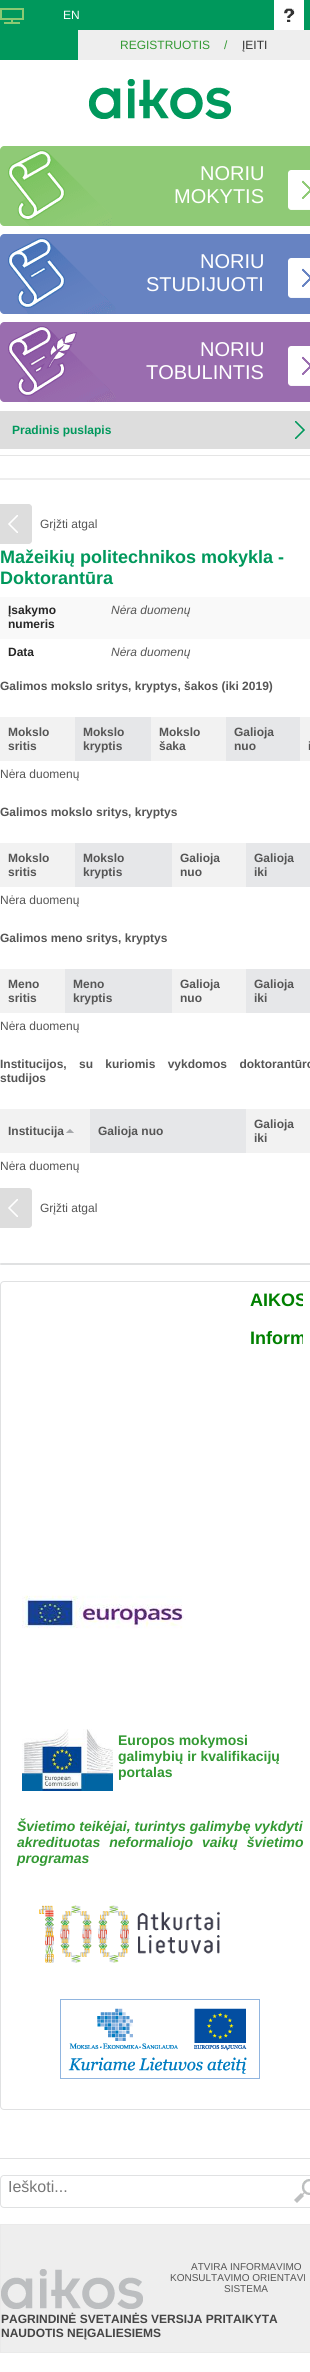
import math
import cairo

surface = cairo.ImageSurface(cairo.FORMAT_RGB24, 310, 2372)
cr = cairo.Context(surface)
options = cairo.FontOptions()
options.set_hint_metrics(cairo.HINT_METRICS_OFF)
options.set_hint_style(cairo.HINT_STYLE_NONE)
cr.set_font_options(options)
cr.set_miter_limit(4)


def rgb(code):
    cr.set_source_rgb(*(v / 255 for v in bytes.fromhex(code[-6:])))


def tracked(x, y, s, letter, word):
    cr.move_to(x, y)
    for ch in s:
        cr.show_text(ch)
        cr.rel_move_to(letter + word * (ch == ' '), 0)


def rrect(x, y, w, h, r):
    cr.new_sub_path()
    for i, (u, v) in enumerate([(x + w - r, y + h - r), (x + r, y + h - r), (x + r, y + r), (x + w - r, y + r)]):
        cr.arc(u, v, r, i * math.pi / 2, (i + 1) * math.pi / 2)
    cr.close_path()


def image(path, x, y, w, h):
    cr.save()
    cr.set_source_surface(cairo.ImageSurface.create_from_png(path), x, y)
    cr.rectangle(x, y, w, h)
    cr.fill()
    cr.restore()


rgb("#ffffff")
cr.paint()
rgb("#00985c")
cr.rectangle(0, 0, 310, 60)
cr.fill()
image("img/1.png", 0, 8, 24, 16)
rgb("#eeeeee")
cr.rectangle(78, 30, 232, 30)
cr.fill()
rgb("#ffffff")
cr.rectangle(274, 0, 30, 30)
cr.fill()
image("img/2.png", 284, 8, 11, 14)
image("img/3.png", 89, 79, 142, 40)
rgb("#8fca76")
cr.new_path()
cr.move_to(4, 146)
cr.line_to(310, 146)
cr.line_to(310, 226)
cr.line_to(4, 226)
cr.curve_to(2, 226, 0, 224, 0, 222)
cr.line_to(0, 150)
cr.curve_to(0, 148, 2, 146, 4, 146)
cr.close_path()
cr.fill()
image("img/4.png", 8, 150, 104, 76)
image("img/5.png", 288, 170, 22, 40)
rgb("#6783c2")
cr.new_path()
cr.move_to(4, 234)
cr.line_to(310, 234)
cr.line_to(310, 314)
cr.line_to(4, 314)
cr.curve_to(2, 314, 0, 312, 0, 310)
cr.line_to(0, 238)
cr.curve_to(0, 236, 2, 234, 4, 234)
cr.close_path()
cr.fill()
image("img/6.png", 8, 238, 108, 76)
image("img/7.png", 288, 258, 22, 40)
rgb("#9a6daf")
cr.new_path()
cr.move_to(4, 322)
cr.line_to(310, 322)
cr.line_to(310, 402)
cr.line_to(4, 402)
cr.curve_to(2, 402, 0, 400, 0, 398)
cr.line_to(0, 326)
cr.curve_to(0, 324, 2, 322, 4, 322)
cr.close_path()
cr.fill()
image("img/8.png", 8, 326, 108, 76)
image("img/9.png", 288, 346, 22, 40)
rgb("#dddddd")
cr.rectangle(0, 411, 310, 38)
cr.fill()
image("img/10.png", 295, 421, 10, 18)
rgb("#e5e5e5")
cr.rectangle(0, 455, 310, 1)
cr.fill()
rgb("#eeeeee")
cr.rectangle(0, 478, 310, 2)
cr.fill()
image("img/11.png", 0, 504, 32, 40)
for x, y, w, h, color in [
    (0, 597, 310, 42, "#f9f9f9"),
    (0, 717, 310, 44, "#f2f2f2"),
    (75, 717, 76, 44, "#e6e7e9"),
    (226, 717, 74, 44, "#e6e7e9"),
    (0, 843, 246, 44, "#f2f2f2"),
    (75, 843, 97, 44, "#e6e7e9"),
    (246, 843, 64, 44, "#e6e7e9"),
    (0, 969, 246, 44, "#f2f2f2"),
    (65, 969, 107, 44, "#e6e7e9"),
    (246, 969, 64, 44, "#e6e7e9"),
    (0, 1109, 310, 44, "#f2f2f2"),
]:
    rgb(color)
    cr.rectangle(x, y, w, h)
    cr.fill()
image("img/12.png", 66, 1129, 8, 4)
rgb("#e6e7e9")
cr.rectangle(90, 1109, 156, 44)
cr.fill()
image("img/11.png", 0, 1188, 32, 40)
rgb("#e0e1e2")
cr.new_path()
cr.move_to(1, 1263)
cr.line_to(310, 1263)
cr.line_to(310, 1265)
cr.line_to(1, 1265)
cr.curve_to(0.5, 1265, 0, 1264.5, 0, 1264)
cr.curve_to(0, 1263.5, 0.5, 1263, 1, 1263)
cr.close_path()
cr.fill()
rrect(0.5, 1281.5, 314, 828, 3.5)
cr.set_line_width(1)
cr.stroke()
image("img/13.png", 22, 1595, 164, 34)
image("img/14.png", 22, 1729, 91, 62)
image("img/15.png", 39, 1905, 181, 58)
image("img/16.png", 60, 1999, 200, 80)
cr.rectangle(0, 2158, 310, 1)
cr.fill()
rrect(0.5, 2175.5, 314, 32, 3.5)
cr.stroke()
cr.set_source_rgba(1, 1, 1, 0.9)
cr.rectangle(3, 2176, 1, 1)
cr.fill()
image("img/17.png", 294, 2179, 16, 24)
rgb("#eeeeee")
cr.rectangle(0.5, 2224.5, 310, 128)
cr.fill_preserve()
rgb("#eaeaea")
cr.stroke()
image("img/18.png", 1, 2269, 142, 40)
cr.select_font_face("Liberation Sans")
cr.set_font_size(12)
rgb("#ffffff")
cr.move_to(63, 19)
cr.show_text("EN")
rgb("#339933")
cr.move_to(120, 49)
cr.show_text("REGISTRUOTIS")
cr.move_to(224, 49)
cr.show_text("/")
rgb("#333333")
cr.move_to(242, 49)
cr.show_text("ĮEITI")
cr.set_font_size(20)
rgb("#ffffff")
for x, y, s in [
    (200, 180, "NORIU"),
    (174, 203, "MOKYTIS"),
    (200, 268, "NORIU"),
    (146, 291, "STUDIJUOTI"),
    (200, 356, "NORIU"),
    (146, 379, "TOBULINTIS"),
]:
    cr.move_to(x, y)
    cr.show_text(s)
cr.select_font_face("Liberation Sans", cairo.FONT_SLANT_NORMAL, cairo.FONT_WEIGHT_BOLD)
cr.set_font_size(12)
rgb("#00985c")
cr.move_to(12, 434)
cr.show_text("Pradinis puslapis")
cr.select_font_face("Liberation Sans")
rgb("#555555")
cr.move_to(40, 528)
cr.show_text("Grįžti atgal")
cr.select_font_face("Liberation Sans", cairo.FONT_SLANT_NORMAL, cairo.FONT_WEIGHT_BOLD)
cr.set_font_size(18)
rgb("#00985c")
cr.move_to(0, 563)
cr.show_text("Mažeikių politechnikos mokykla -")
cr.move_to(0, 584)
cr.show_text("Doktorantūra")
cr.set_font_size(12)
rgb("#262626")
cr.move_to(8, 614)
cr.show_text("Įsakymo")
cr.move_to(8, 628)
cr.show_text("numeris")
cr.select_font_face("Liberation Sans", cairo.FONT_SLANT_ITALIC)
rgb("#555555")
cr.move_to(111, 614)
cr.show_text("Nėra duomenų")
cr.select_font_face("Liberation Sans", cairo.FONT_SLANT_NORMAL, cairo.FONT_WEIGHT_BOLD)
rgb("#262626")
cr.move_to(8, 656)
cr.show_text("Data")
cr.select_font_face("Liberation Sans", cairo.FONT_SLANT_ITALIC)
rgb("#555555")
cr.move_to(111, 656)
cr.show_text("Nėra duomenų")
cr.select_font_face("Liberation Sans", cairo.FONT_SLANT_NORMAL, cairo.FONT_WEIGHT_BOLD)
for x, y, s in [
    (0, 690, "Galimos mokslo sritys, kryptys, šakos (iki 2019)"),
    (8, 736, "Mokslo"),
    (8, 750, "sritis"),
    (83, 736, "Mokslo"),
    (83, 750, "kryptis"),
    (159, 736, "Mokslo"),
    (159, 750, "šaka"),
    (234, 736, "Galioja"),
    (234, 750, "nuo"),
    (308, 750, "i"),
]:
    cr.move_to(x, y)
    cr.show_text(s)
cr.select_font_face("Liberation Sans")
cr.move_to(0, 778)
cr.show_text("Nėra duomenų")
cr.select_font_face("Liberation Sans", cairo.FONT_SLANT_NORMAL, cairo.FONT_WEIGHT_BOLD)
for x, y, s in [
    (0, 816, "Galimos mokslo sritys, kryptys"),
    (8, 862, "Mokslo"),
    (8, 876, "sritis"),
    (83, 862, "Mokslo"),
    (83, 876, "kryptis"),
    (180, 862, "Galioja"),
    (180, 876, "nuo"),
    (254, 862, "Galioja"),
    (254, 876, "iki"),
]:
    cr.move_to(x, y)
    cr.show_text(s)
cr.select_font_face("Liberation Sans")
cr.move_to(0, 904)
cr.show_text("Nėra duomenų")
cr.select_font_face("Liberation Sans", cairo.FONT_SLANT_NORMAL, cairo.FONT_WEIGHT_BOLD)
for x, y, s in [
    (0, 942, "Galimos meno sritys, kryptys"),
    (8, 988, "Meno"),
    (8, 1002, "sritis"),
    (73, 988, "Meno"),
    (73, 1002, "kryptis"),
    (180, 988, "Galioja"),
    (180, 1002, "nuo"),
    (254, 988, "Galioja"),
    (254, 1002, "iki"),
]:
    cr.move_to(x, y)
    cr.show_text(s)
cr.select_font_face("Liberation Sans")
cr.move_to(0, 1030)
cr.show_text("Nėra duomenų")
cr.select_font_face("Liberation Sans", cairo.FONT_SLANT_NORMAL, cairo.FONT_WEIGHT_BOLD)
tracked(0, 1068, "Institucijos, su kuriomis vykdomos doktorantūro", 0, 9)
for x, y, s in [
    (0, 1082, "studijos"),
    (8, 1135, "Institucija"),
    (98, 1135, "Galioja nuo"),
    (254, 1128, "Galioja"),
    (254, 1142, "iki"),
]:
    cr.move_to(x, y)
    cr.show_text(s)
cr.select_font_face("Liberation Sans")
cr.move_to(0, 1170)
cr.show_text("Nėra duomenų")
cr.move_to(40, 1212)
cr.show_text("Grįžti atgal")
cr.save()
cr.rectangle(17, 1290, 286, 21)
cr.clip()
cr.select_font_face("Liberation Sans", cairo.FONT_SLANT_NORMAL, cairo.FONT_WEIGHT_BOLD)
cr.set_font_size(18)
rgb("#008000")
cr.move_to(250, 1306)
cr.show_text("AIKOS")
cr.restore()
cr.save()
cr.rectangle(17, 1328, 286, 21)
cr.clip()
cr.select_font_face("Liberation Sans", cairo.FONT_SLANT_NORMAL, cairo.FONT_WEIGHT_BOLD)
cr.set_font_size(18)
rgb("#008000")
cr.move_to(250, 1344)
cr.show_text("Inform")
cr.restore()
cr.select_font_face("Liberation Sans", cairo.FONT_SLANT_NORMAL, cairo.FONT_WEIGHT_BOLD)
cr.set_font_size(14)
rgb("#339933")
for x, y, s in [
    (118, 1745, "Europos mokymosi"),
    (118, 1761, "galimybių ir kvalifikacijų"),
    (118, 1777, "portalas"),
]:
    cr.move_to(x, y)
    cr.show_text(s)
cr.select_font_face("Liberation Sans", cairo.FONT_SLANT_ITALIC, cairo.FONT_WEIGHT_BOLD)
cr.move_to(17, 1831)
cr.show_text("Švietimo teikėjai, turintys galimybę vykdyti")
tracked(17, 1847, "akredituotas neformaliojo vaikų švietimo", 0, 5)
cr.move_to(17, 1863)
cr.show_text("programas")
cr.select_font_face("Liberation Sans")
cr.set_font_size(16)
rgb("#777777")
cr.move_to(8, 2192)
cr.show_text("Ieškoti...")
cr.set_font_size(10)
rgb("#555555")
for x, y, s in [
    (191, 2270, "ATVIRA INFORMAVIMO"),
    (170, 2281, "KONSULTAVIMO ORIENTAVI"),
    (224, 2292, "SISTEMA"),
]:
    cr.move_to(x, y)
    cr.show_text(s)
cr.select_font_face("Liberation Sans", cairo.FONT_SLANT_NORMAL, cairo.FONT_WEIGHT_BOLD)
cr.set_font_size(12)
rgb("#444444")
cr.move_to(1, 2323)
cr.show_text("PAGRINDINĖ SVETAINĖS VERSIJA PRITAIKYTA")
cr.move_to(1, 2337)
cr.show_text("NAUDOTIS NEĮGALIESIEMS")
surface.write_to_png("page.png")
